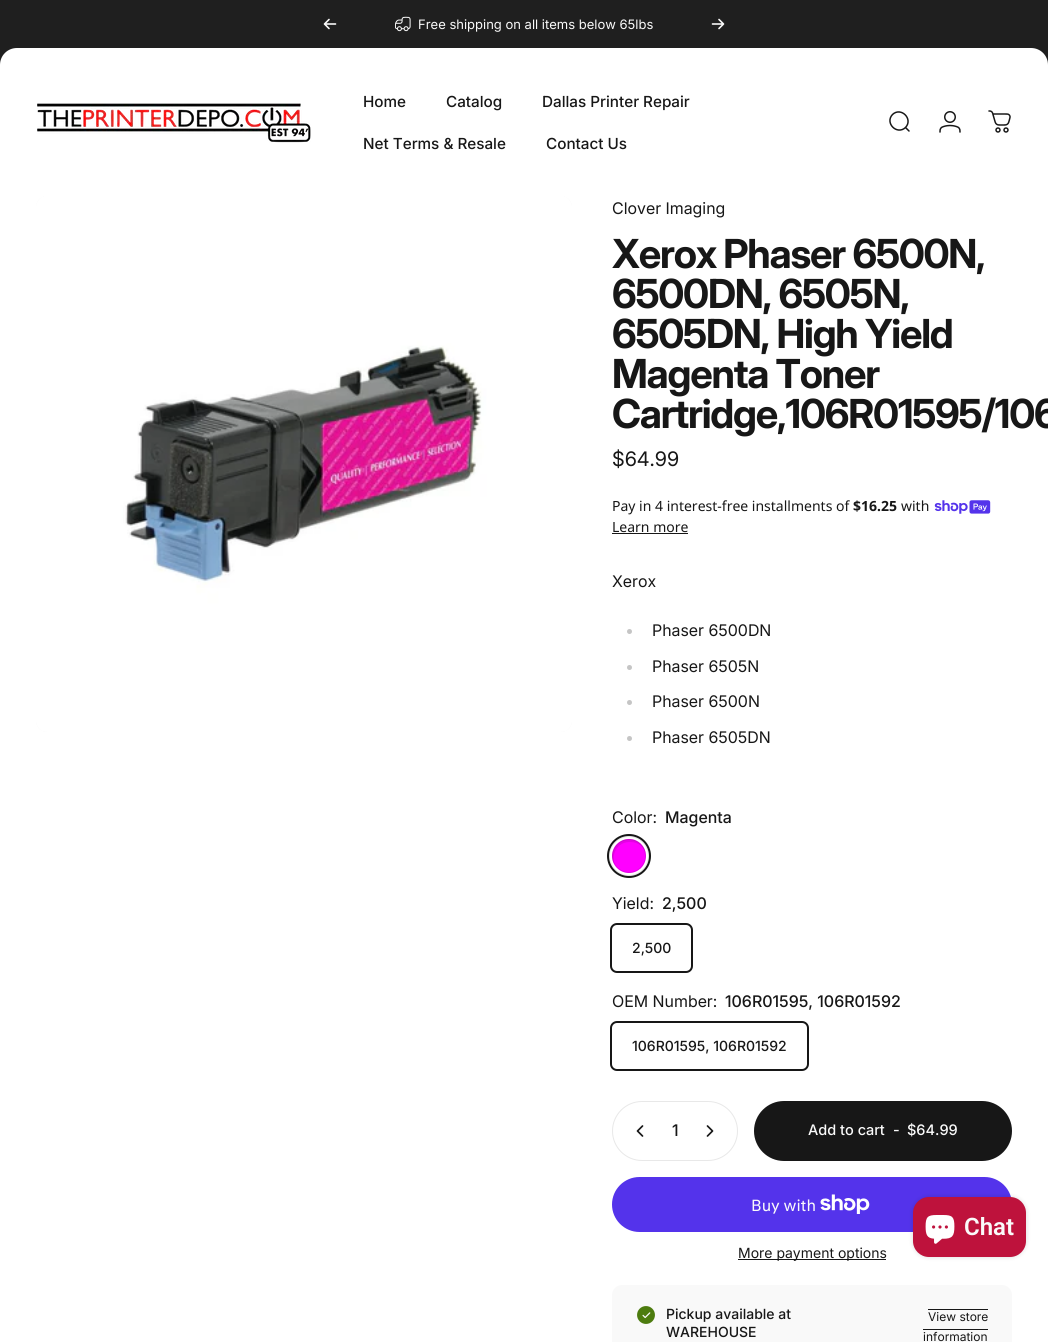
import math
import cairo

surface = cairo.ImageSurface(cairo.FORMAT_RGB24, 1048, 1342)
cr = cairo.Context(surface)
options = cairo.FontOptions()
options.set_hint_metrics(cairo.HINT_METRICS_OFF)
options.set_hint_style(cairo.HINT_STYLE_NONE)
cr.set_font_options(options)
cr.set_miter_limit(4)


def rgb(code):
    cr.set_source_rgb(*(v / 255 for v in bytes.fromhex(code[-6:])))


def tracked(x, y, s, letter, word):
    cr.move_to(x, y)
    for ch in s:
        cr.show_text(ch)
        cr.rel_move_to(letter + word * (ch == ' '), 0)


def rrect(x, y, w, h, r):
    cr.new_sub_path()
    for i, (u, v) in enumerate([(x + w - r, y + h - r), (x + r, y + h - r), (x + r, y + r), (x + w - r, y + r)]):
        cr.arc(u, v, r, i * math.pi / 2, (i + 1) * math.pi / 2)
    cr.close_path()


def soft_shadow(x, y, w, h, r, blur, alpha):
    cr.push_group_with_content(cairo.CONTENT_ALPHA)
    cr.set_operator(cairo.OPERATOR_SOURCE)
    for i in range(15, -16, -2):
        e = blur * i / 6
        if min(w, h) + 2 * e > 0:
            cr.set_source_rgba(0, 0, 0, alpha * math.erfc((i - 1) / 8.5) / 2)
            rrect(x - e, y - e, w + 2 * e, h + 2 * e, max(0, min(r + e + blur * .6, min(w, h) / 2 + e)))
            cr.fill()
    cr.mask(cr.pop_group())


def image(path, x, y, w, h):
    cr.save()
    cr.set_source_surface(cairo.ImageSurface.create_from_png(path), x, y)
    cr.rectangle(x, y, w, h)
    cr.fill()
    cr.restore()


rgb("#ffffff")
cr.paint()
rgb("#1f1f1f")
cr.rectangle(0, 0, 1048, 17)
cr.fill()
cr.new_path()
cr.move_to(17, 0)
cr.line_to(1031, 0)
cr.curve_to(1040.5, 0, 1048, 7.5, 1048, 17)
cr.line_to(1048, 65)
cr.line_to(0, 65)
cr.line_to(0, 17)
cr.curve_to(0, 7.5, 7.5, 0, 17, 0)
cr.close_path()
cr.fill()
cr.new_path()
cr.move_to(329, 19.5)
cr.line_to(324.5, 24)
cr.move_to(324.5, 24)
cr.line_to(329, 28.5)
cr.move_to(324.5, 24)
cr.line_to(335.5, 24)
rgb("#fafafa")
cr.set_line_width(1.6)
cr.set_line_cap(cairo.LINE_CAP_ROUND)
cr.set_line_join(cairo.LINE_JOIN_ROUND)
cr.stroke()
image("img/1.png", 395, 16, 16, 16)
cr.new_path()
cr.move_to(712.5, 24)
cr.line_to(723.5, 24)
cr.move_to(723.5, 24)
cr.line_to(719, 19.5)
cr.move_to(723.5, 24)
cr.line_to(719, 28.5)
cr.stroke()
rgb("#ffffff")
cr.new_path()
cr.move_to(17, 48)
cr.line_to(1031, 48)
cr.curve_to(1040.5, 48, 1048, 55.5, 1048, 65)
cr.line_to(1048, 196)
cr.line_to(0, 196)
cr.line_to(0, 65)
cr.curve_to(0, 55.5, 7.5, 48, 17, 48)
cr.close_path()
cr.fill()
image("img/2.png", 37, 103, 274, 40)
cr.new_path()
cr.move_to(909, 131)
cr.line_to(905.5, 127.5)
cr.move_to(905.5, 127.5)
cr.curve_to(913.5, 119, 901, 106.5, 892.5, 114.5)
cr.curve_to(884.5, 123, 897, 135.5, 905.5, 127.5)
cr.close_path()
rgb("#171717")
cr.set_line_width(1.5)
cr.set_line_join(cairo.LINE_JOIN_MITER)
cr.stroke()
image("img/3.png", 939, 111, 22, 22)
image("img/4.png", 988, 110, 23, 23)
rgb("#fafafa")
rrect(36, 196, 536, 536, 11)
cr.fill()
rgb("#ffffff")
cr.rectangle(44, 196, 520, 1)
cr.fill()
image("img/5.png", 36, 197, 536, 535)
image("img/6.png", 934, 500, 57, 14)
rgb("#171717")
cr.rectangle(612, 533, 76, 1)
cr.fill()
rgb("#c5c5c5")
cr.arc(629.5, 631.5, 2.5, 0, 2 * math.pi)
cr.fill()
cr.arc(629.5, 667.5, 2.5, 0, 2 * math.pi)
cr.fill()
cr.arc(629.5, 702.5, 2.5, 0, 2 * math.pi)
cr.fill()
cr.arc(629.5, 738.5, 2.5, 0, 2 * math.pi)
cr.fill()
rgb("#ff00ff")
cr.arc(629, 856, 17, 0, 2 * math.pi)
cr.fill()
cr.set_source_rgba(0.09, 0.09, 0.09, 0.11)
cr.new_path()
cr.move_to(630, 842)
cr.curve_to(639, 842, 644, 847.5, 646, 854)
cr.curve_to(645.5, 850, 643.5, 846, 640.5, 843.5)
cr.curve_to(626, 830, 605, 848.5, 614.5, 864.5)
cr.curve_to(611.5, 854.5, 616.5, 842, 630, 842)
cr.close_path()
cr.fill()
cr.arc(629, 856, 16.5, 0, 2 * math.pi)
cr.set_line_width(1)
cr.set_line_cap(cairo.LINE_CAP_BUTT)
cr.stroke()
cr.arc(629, 856, 21, 0, 2 * math.pi)
rgb("#171717")
cr.set_line_width(2)
cr.stroke()
cr.arc(629, 856, 19.5, 0, 2 * math.pi)
cr.set_source_rgba(0.09, 0.09, 0.09, 0.11)
cr.set_line_width(1)
cr.stroke()
rrect(611, 924, 81, 48, 6)
rgb("#171717")
cr.set_line_width(2)
cr.stroke()
rrect(611, 1022, 197, 48, 6)
cr.stroke()
rrect(612.5, 1101.5, 125, 59, 29.5)
rgb("#e8e8e8")
cr.set_line_width(1)
cr.stroke()
cr.new_path()
cr.move_to(642.5, 1126)
cr.line_to(637.5, 1131)
cr.line_to(642.5, 1136)
rgb("#171717")
cr.set_line_width(1.7)
cr.set_line_cap(cairo.LINE_CAP_ROUND)
cr.set_line_join(cairo.LINE_JOIN_ROUND)
cr.stroke()
cr.new_path()
cr.move_to(707.5, 1126)
cr.line_to(712.5, 1131)
cr.line_to(707.5, 1136)
cr.stroke()
rrect(755, 1102, 256, 58, 29)
cr.fill_preserve()
cr.set_line_width(2)
cr.set_line_cap(cairo.LINE_CAP_BUTT)
cr.set_line_join(cairo.LINE_JOIN_MITER)
cr.stroke()
rgb("#5433eb")
rrect(612, 1177, 400, 55, 27.5)
cr.fill()
image("img/7.png", 820, 1194, 50, 20)
rgb("#171717")
cr.rectangle(738, 1259, 148, 1)
cr.fill()
rgb("#f9f9f9")
rrect(612, 1285, 400, 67, 10)
cr.fill()
image("img/8.png", 637, 1306, 18, 18)
rgb("#171717")
cr.rectangle(928, 1309, 60, 1)
cr.fill()
cr.rectangle(923, 1329, 65, 1)
cr.fill()
rgb("#000000")
soft_shadow(913, 1197, 113, 60, 16, 2.5, 0.15)
rgb("#be123c")
rrect(913, 1197, 113, 60, 16)
cr.fill()
image("img/9.png", 925, 1215, 30, 29)
cr.select_font_face("Inter")
cr.set_font_size(13)
rgb("#fafafa")
cr.move_to(418, 29)
cr.show_text("Free shipping on all items below 65lbs")
cr.select_font_face("Inter Medium")
cr.set_font_size(15.25)
rgb("#171717")
for x, y, s in [
    (363, 107, "Home"),
    (446, 107, "Catalog"),
    (542, 107, "Dallas Printer Repair"),
    (363, 149, "Net Terms & Resale"),
    (546, 149, "Contact Us"),
]:
    cr.move_to(x, y)
    cr.show_text(s)
cr.select_font_face("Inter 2")
cr.set_font_size(16)
cr.move_to(612, 214)
cr.show_text("Clover Imaging")
cr.select_font_face("Inter", cairo.FONT_SLANT_NORMAL, cairo.FONT_WEIGHT_BOLD)
cr.set_font_size(40)
for x, y, s in [
    (612, 268, "Xerox Phaser 6500N,"),
    (612, 308, "6500DN, 6505N,"),
    (612, 348, "6505DN, High Yield"),
    (612, 388, "Magenta Toner"),
    (612, 428, "Cartridge,106R01595/106"),
]:
    tracked(x, y, s, -1.2, 0)
cr.select_font_face("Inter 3")
cr.set_font_size(20)
cr.move_to(612, 466)
cr.show_text("$64.99")
cr.select_font_face("Noto Sans")
cr.set_font_size(14)
cr.move_to(612, 511)
cr.show_text("Pay in 4 interest-free installments of")
cr.select_font_face("Noto Sans", cairo.FONT_SLANT_NORMAL, cairo.FONT_WEIGHT_BOLD)
cr.move_to(853, 511)
cr.show_text("$16.25")
cr.select_font_face("Noto Sans")
cr.move_to(901, 511)
cr.show_text("with")
cr.move_to(612, 532)
cr.show_text("Learn more")
cr.select_font_face("Inter 2")
cr.set_font_size(16)
for x, y, s in [
    (612, 587, "Xerox"),
    (652, 636, "Phaser 6500DN"),
    (652, 672, "Phaser 6505N"),
    (652, 707, "Phaser 6500N"),
    (652, 743, "Phaser 6505DN"),
    (612, 823, "Color:"),
]:
    cr.move_to(x, y)
    cr.show_text(s)
cr.select_font_face("Inter 2 Medium")
cr.move_to(665, 823)
cr.show_text("Magenta")
cr.select_font_face("Inter 2")
cr.move_to(612, 909)
cr.show_text("Yield:")
cr.select_font_face("Inter 2 Medium")
cr.move_to(662, 909)
cr.show_text("2,500")
cr.select_font_face("Inter Medium")
cr.set_font_size(14)
cr.move_to(632, 953)
cr.show_text("2,500")
cr.select_font_face("Inter 2")
cr.set_font_size(16)
cr.move_to(612, 1007)
cr.show_text("OEM Number:")
cr.select_font_face("Inter 2 Medium")
cr.move_to(725, 1007)
cr.show_text("106R01595, 106R01592")
cr.select_font_face("Inter Medium")
cr.set_font_size(14)
cr.move_to(632, 1051)
cr.show_text("106R01595, 106R01592")
cr.select_font_face("Inter 2 Medium")
cr.set_font_size(16)
cr.move_to(672, 1136)
cr.show_text("1")
cr.select_font_face("Inter Medium")
cr.set_font_size(14.5)
rgb("#fafafa")
for x, y, s in [
    (808, 1135, "Add to cart"),
    (893, 1135, "-"),
    (907, 1135, "$64.99"),
]:
    cr.move_to(x, y)
    cr.show_text(s)
cr.select_font_face("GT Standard")
cr.set_font_size(16)
cr.move_to(751, 1211)
cr.show_text("Buy with")
cr.select_font_face("Inter")
cr.set_font_size(14)
rgb("#171717")
cr.move_to(738, 1258)
cr.show_text("More payment options")
cr.select_font_face("Inter Medium")
cr.move_to(666, 1319)
cr.show_text("Pickup available at")
cr.move_to(666, 1337)
cr.show_text("WAREHOUSE")
cr.select_font_face("Inter")
cr.set_font_size(12)
cr.move_to(928, 1321)
cr.show_text("View store")
cr.move_to(923, 1341)
cr.show_text("information")
cr.select_font_face("Roboto SemiBold")
cr.set_font_size(24)
rgb("#fafafa")
cr.move_to(964, 1235)
cr.show_text("Chat")
surface.write_to_png("page.png")
